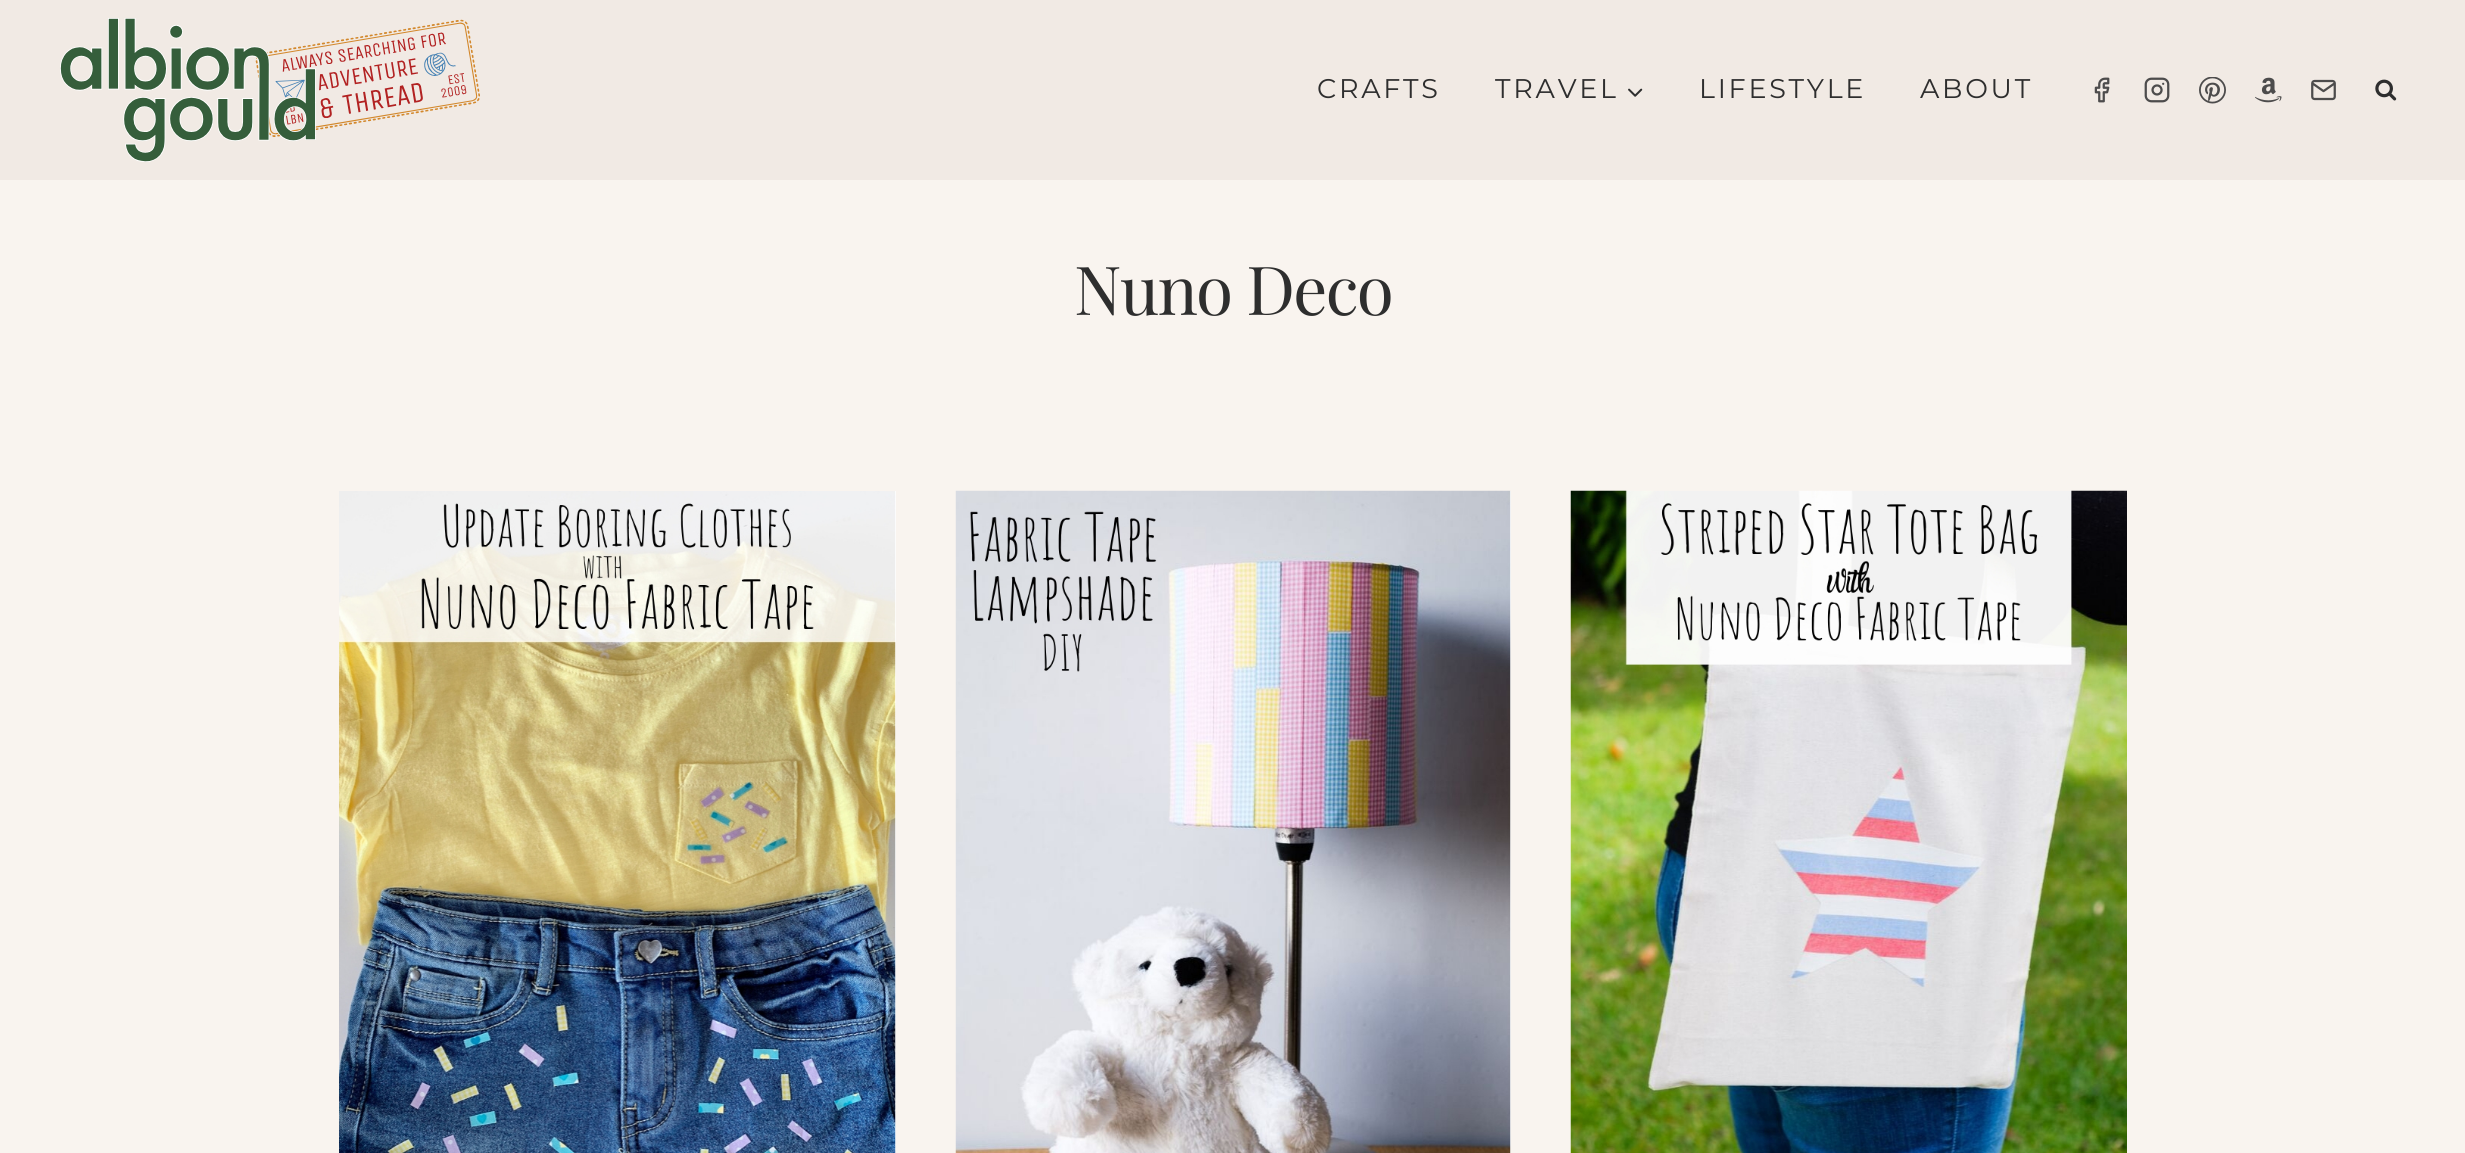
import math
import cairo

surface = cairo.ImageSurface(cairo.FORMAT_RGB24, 2465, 1153)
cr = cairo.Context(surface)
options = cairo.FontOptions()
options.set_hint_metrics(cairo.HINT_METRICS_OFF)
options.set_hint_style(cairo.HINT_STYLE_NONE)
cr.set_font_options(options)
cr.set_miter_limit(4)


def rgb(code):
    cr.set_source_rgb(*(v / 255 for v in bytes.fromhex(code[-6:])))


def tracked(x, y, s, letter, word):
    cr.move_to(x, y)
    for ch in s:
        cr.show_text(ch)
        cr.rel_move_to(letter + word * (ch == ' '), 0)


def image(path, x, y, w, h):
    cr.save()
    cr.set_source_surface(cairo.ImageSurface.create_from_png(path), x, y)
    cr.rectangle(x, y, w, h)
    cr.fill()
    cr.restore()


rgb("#f9f4ef")
cr.paint()
rgb("#f1eae4")
cr.rectangle(0, 0, 2465, 180)
cr.fill()
image("img/1.png", 60, 18, 420, 144)
image("img/2.png", 1628, 88, 15, 9)
image("img/3.png", 2094, 77, 16, 26)
image("img/4.png", 2144, 77, 26, 26)
image("img/5.png", 2199, 77, 27, 27)
image("img/6.png", 2255, 77, 27, 26)
image("img/7.png", 2311, 79, 25, 22)
image("img/8.png", 2375, 79, 22, 22)
rgb("#ffffff")
cr.rectangle(895, 491, 1, 662)
cr.fill()
image("img/9.png", 339, 491, 557, 662)
cr.rectangle(1510, 491, 1, 662)
cr.fill()
image("img/10.png", 955, 490, 556, 663)
image("img/11.png", 1570, 490, 557, 663)
cr.select_font_face("Montserrat")
cr.set_font_size(27)
rgb("#2e2e2e")
for x, y, s in [
    (1317, 98, "CRAFTS"),
    (1495, 98, "TRAVEL"),
    (1699, 98, "LIFESTYLE"),
    (1920, 98, "ABOUT"),
]:
    tracked(x, y, s, 2.75, 0)
cr.select_font_face("Playfair Display")
cr.set_font_size(67.5)
tracked(1074, 315, "Nuno Deco", -1.75, 0)
surface.write_to_png("page.png")
